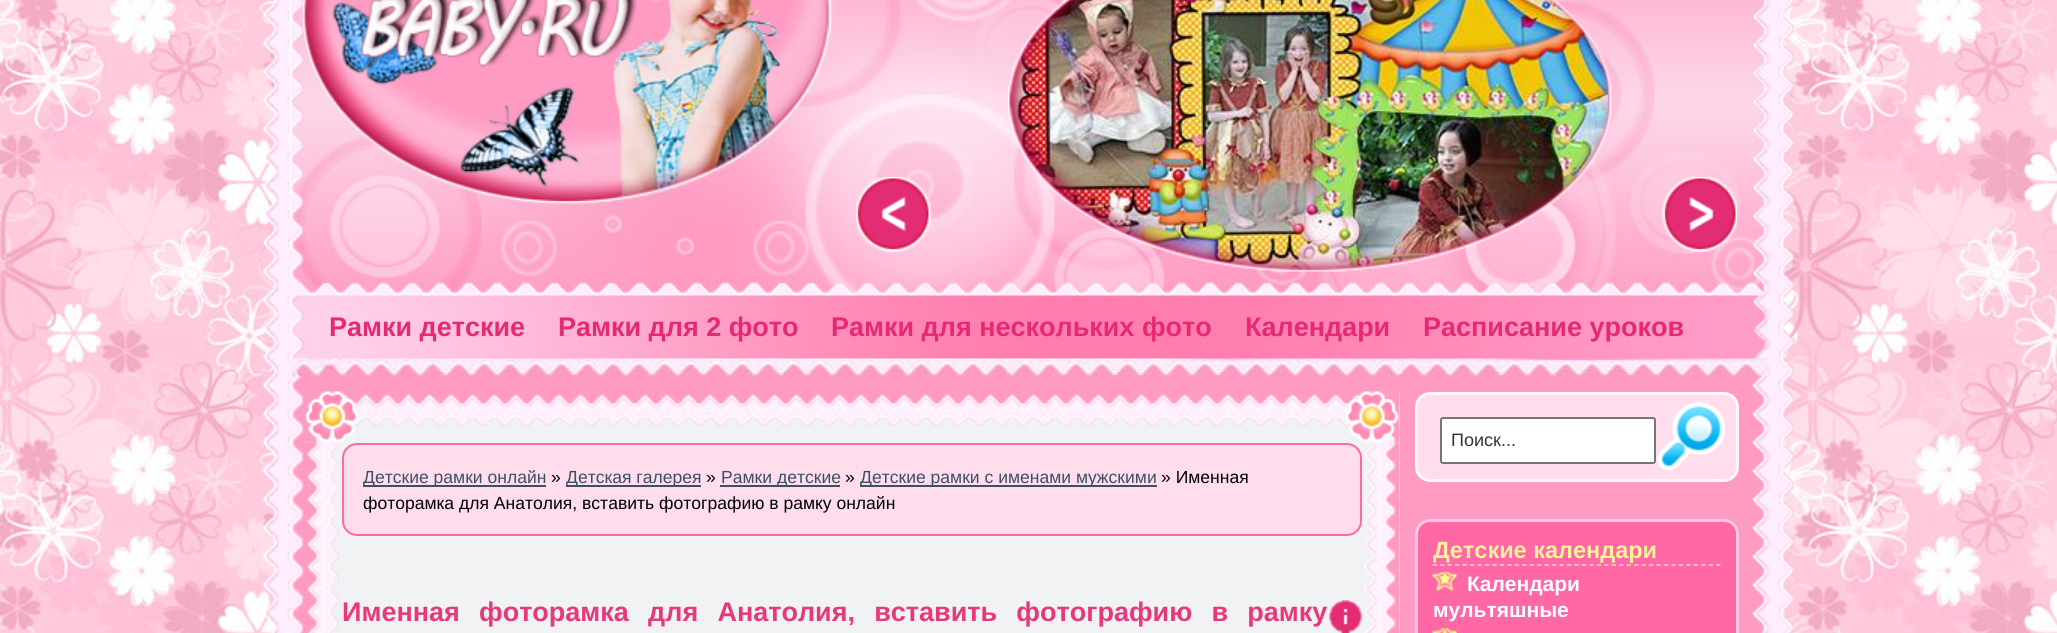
import math
import cairo

surface = cairo.ImageSurface(cairo.FORMAT_RGB24, 2057, 633)
cr = cairo.Context(surface)
options = cairo.FontOptions()
options.set_hint_metrics(cairo.HINT_METRICS_OFF)
options.set_hint_style(cairo.HINT_STYLE_NONE)
cr.set_font_options(options)
cr.set_miter_limit(4)


def rgb(code):
    cr.set_source_rgb(*(v / 255 for v in bytes.fromhex(code[-6:])))


def tracked(x, y, s, letter, word):
    cr.move_to(x, y)
    for ch in s:
        cr.show_text(ch)
        cr.rel_move_to(letter + word * (ch == ' '), 0)


def rrect(x, y, w, h, r):
    cr.new_sub_path()
    for i, (u, v) in enumerate([(x + w - r, y + h - r), (x + r, y + h - r), (x + r, y + r), (x + w - r, y + r)]):
        cr.arc(u, v, r, i * math.pi / 2, (i + 1) * math.pi / 2)
    cr.close_path()


def image(path, x, y, w, h):
    cr.save()
    cr.set_source_surface(cairo.ImageSurface.create_from_png(path), x, y)
    cr.rectangle(x, y, w, h)
    cr.fill()
    cr.restore()


rgb("#ffffff")
cr.paint()
image("img/1.png", 0, 0, 2057, 633)
image("img/2.png", 262, 0, 1533, 633)
image("img/3.png", 289, 0, 1480, 377)
image("img/7.png", 1009, 0, 599, 271)
image("img/8.png", 843, 0, 911, 279)
image("img/4.png", 289, 0, 566, 212)
rgb("#f0f2f4")
cr.rectangle(305, 392, 1095, 241)
cr.fill()
image("img/6.png", 305, 442, 1095, 191)
image("img/5.png", 305, 391, 1095, 52)
rgb("#ffdded")
rrect(343, 444, 1018, 91, 14)
cr.fill_preserve()
rgb("#ff67a5")
cr.stroke()
for x, y, w, h, color in [
    (363, 485, 183, 2, "#3b5163"),
    (566, 485, 135, 2, "#3b5163"),
    (720, 485, 120, 2, "#3b5163"),
    (860, 485, 297, 2, "#3b5163"),
]:
    rgb(color)
    cr.rectangle(x, y, w, h)
    cr.fill()
image("img/9.png", 856, 177, 76, 75)
image("img/10.png", 1662, 177, 75, 75)
image("img/11.png", 1329, 600, 33, 33)
rgb("#ffdded")
rrect(1416.5, 393.5, 321, 87, 13.5)
cr.fill_preserve()
rgb("#fff7fd")
cr.set_line_width(3)
cr.stroke()
rgb("#ffffff")
rrect(1441, 418, 214, 45, 2)
cr.fill_preserve()
rgb("#767676")
cr.set_line_width(2)
cr.stroke()
image("img/12.png", 1657, 402, 68, 69)
rgb("#ff67a5")
rrect(1416.5, 520.5, 321, 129, 13.5)
cr.fill_preserve()
rgb("#ffc9e1")
cr.set_line_width(3)
cr.stroke()
cr.new_path()
cr.move_to(1432.5, 565)
cr.line_to(1720.5, 565)
rgb("#ffcee7")
cr.set_line_width(1.5)
cr.set_dash([4.5, 2.96])
cr.stroke()
image("img/13.png", 1432, 572, 25, 19)
image("img/14.png", 1432, 628, 25, 5)
cr.select_font_face("Liberation Sans", cairo.FONT_SLANT_NORMAL, cairo.FONT_WEIGHT_BOLD)
cr.set_font_size(27)
rgb("#e52973")
for x, y, s in [
    (329, 336, "Рамки детские"),
    (558, 336, "Рамки для 2 фото"),
    (831, 336, "Рамки для нескольких фото"),
    (1245, 336, "Календари"),
    (1423, 336, "Расписание уроков"),
]:
    cr.move_to(x, y)
    cr.show_text(s)
cr.select_font_face("Liberation Sans")
cr.set_font_size(17.55)
rgb("#3b5163")
cr.move_to(363, 483)
cr.show_text("Детские рамки онлайн")
rgb("#000000")
cr.move_to(551, 483)
cr.show_text("»")
rgb("#3b5163")
cr.move_to(566, 483)
cr.show_text("Детская галерея")
rgb("#000000")
cr.move_to(706, 483)
cr.show_text("»")
rgb("#3b5163")
cr.move_to(721, 483)
cr.show_text("Рамки детские")
rgb("#000000")
cr.move_to(845, 483)
cr.show_text("»")
rgb("#3b5163")
cr.move_to(860, 483)
cr.show_text("Детские рамки с именами мужскими")
rgb("#000000")
cr.move_to(1161, 483)
cr.show_text("» Именная")
cr.move_to(363, 509)
cr.show_text("фоторамка для Анатолия, вставить фотографию в рамку онлайн")
cr.select_font_face("Liberation Sans", cairo.FONT_SLANT_NORMAL, cairo.FONT_WEIGHT_BOLD)
cr.set_font_size(27)
rgb("#e8387d")
tracked(342, 621, "Именная фоторамка для Анатолия, вставить фотографию в рамку", 0, 11.75)
cr.select_font_face("Liberation Sans")
cr.set_font_size(18)
rgb("#353535")
cr.move_to(1451, 446)
cr.show_text("Поиск...")
cr.select_font_face("Liberation Sans", cairo.FONT_SLANT_NORMAL, cairo.FONT_WEIGHT_BOLD)
cr.set_font_size(23.5)
rgb("#fef29a")
cr.move_to(1433, 558)
cr.show_text("Детские календари")
cr.set_font_size(21)
rgb("#ffffff")
cr.move_to(1467, 591)
cr.show_text("Календари")
cr.move_to(1433, 617)
cr.show_text("мультяшные")
surface.write_to_png("page.png")
